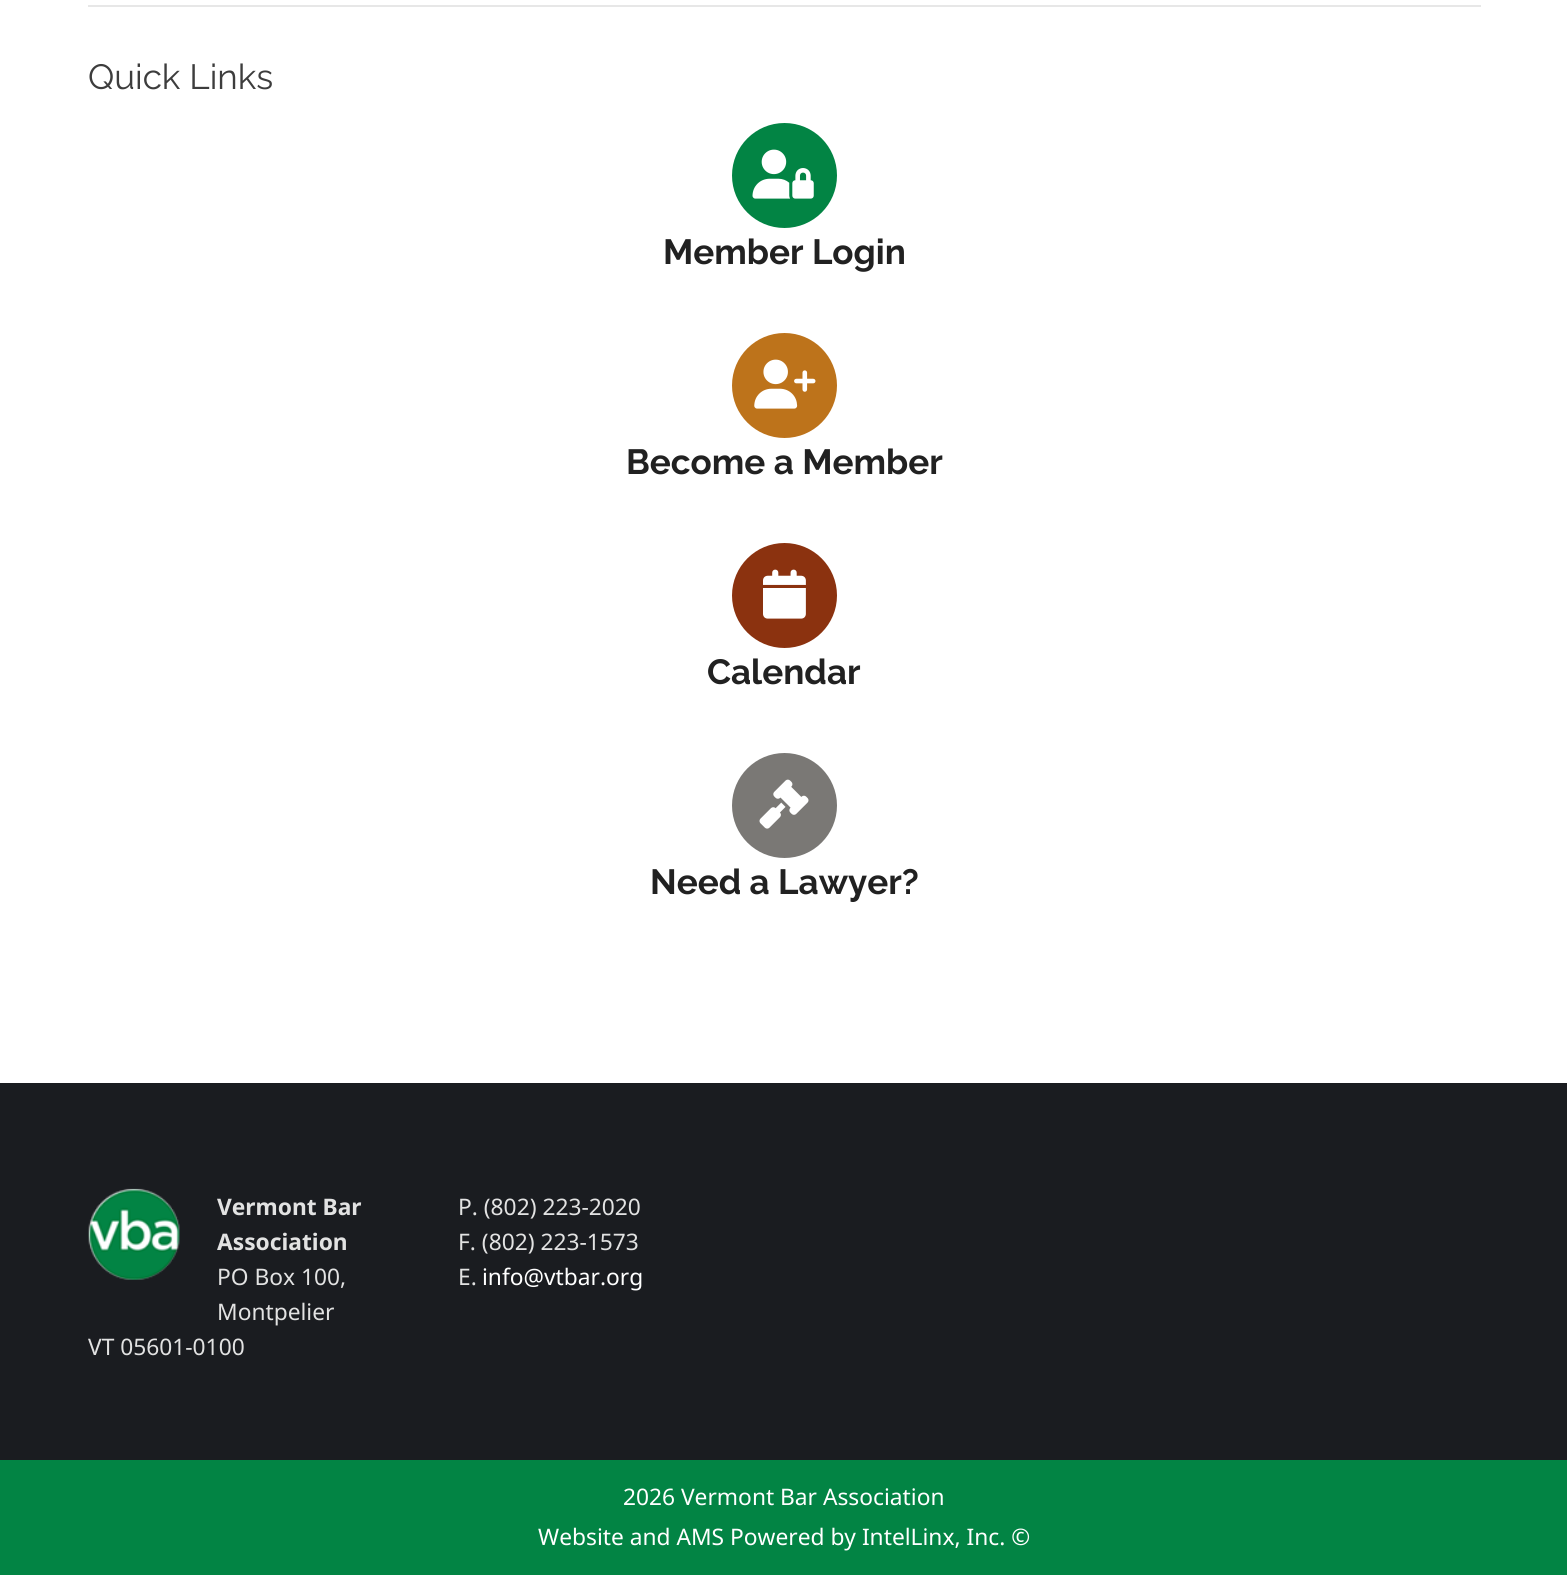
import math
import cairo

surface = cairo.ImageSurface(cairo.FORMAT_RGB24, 1567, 1575)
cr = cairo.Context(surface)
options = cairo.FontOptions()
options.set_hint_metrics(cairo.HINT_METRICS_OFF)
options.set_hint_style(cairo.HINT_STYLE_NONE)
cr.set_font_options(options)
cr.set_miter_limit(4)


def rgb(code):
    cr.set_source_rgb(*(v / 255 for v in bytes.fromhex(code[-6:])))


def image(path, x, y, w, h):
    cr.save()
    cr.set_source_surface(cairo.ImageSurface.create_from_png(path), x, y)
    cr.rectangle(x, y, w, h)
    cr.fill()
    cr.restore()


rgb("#ffffff")
cr.paint()
rgb("#e7e7e7")
cr.rectangle(88, 5, 1393, 2)
cr.fill()
rgb("#028444")
cr.arc(784.5, 175.5, 52.5, 0, 2 * math.pi)
cr.fill()
image("img/1.png", 752, 149, 62, 50)
rgb("#bd731b")
cr.arc(784.5, 385.5, 52.5, 0, 2 * math.pi)
cr.fill()
image("img/2.png", 754, 359, 62, 50)
rgb("#8b320f")
cr.arc(784.5, 595.5, 52.5, 0, 2 * math.pi)
cr.fill()
image("img/3.png", 763, 569, 43, 50)
rgb("#7a7875")
cr.arc(784.5, 805.5, 52.5, 0, 2 * math.pi)
cr.fill()
image("img/4.png", 759, 779, 50, 50)
rgb("#1a1c20")
cr.rectangle(0, 1083, 1567, 377)
cr.fill()
image("img/5.png", 88, 1188, 92, 92)
rgb("#028444")
cr.rectangle(0, 1460, 1567, 115)
cr.fill()
cr.select_font_face("Raleway")
cr.set_font_size(35)
rgb("#3d3d3d")
cr.move_to(88, 89)
cr.show_text("Quick Links")
cr.select_font_face("Raleway", cairo.FONT_SLANT_NORMAL, cairo.FONT_WEIGHT_BOLD)
rgb("#212121")
for x, y, s in [
    (663, 264, "Member Login"),
    (626, 474, "Become a Member"),
    (707, 684, "Calendar"),
    (650, 894, "Need a Lawyer?"),
]:
    cr.move_to(x, y)
    cr.show_text(s)
cr.select_font_face("Noto Sans", cairo.FONT_SLANT_NORMAL, cairo.FONT_WEIGHT_BOLD)
cr.set_font_size(22.75)
rgb("#e2e2e2")
cr.move_to(217, 1215)
cr.show_text("Vermont Bar")
cr.move_to(217, 1250)
cr.show_text("Association")
cr.select_font_face("Noto Sans")
for x, y, s in [
    (217, 1285, "PO Box 100,"),
    (217, 1320, "Montpelier"),
    (88, 1355, "VT 05601-0100"),
    (458, 1215, "P. (802) 223-2020"),
    (458, 1250, "F. (802) 223-1573"),
    (458, 1285, "E."),
]:
    cr.move_to(x, y)
    cr.show_text(s)
rgb("#ffffff")
for x, y, s in [
    (482, 1285, "info@vtbar.org"),
    (623, 1505, "2026 Vermont Bar Association"),
    (538, 1545, "Website and AMS Powered by IntelLinx, Inc. ©"),
]:
    cr.move_to(x, y)
    cr.show_text(s)
surface.write_to_png("page.png")
